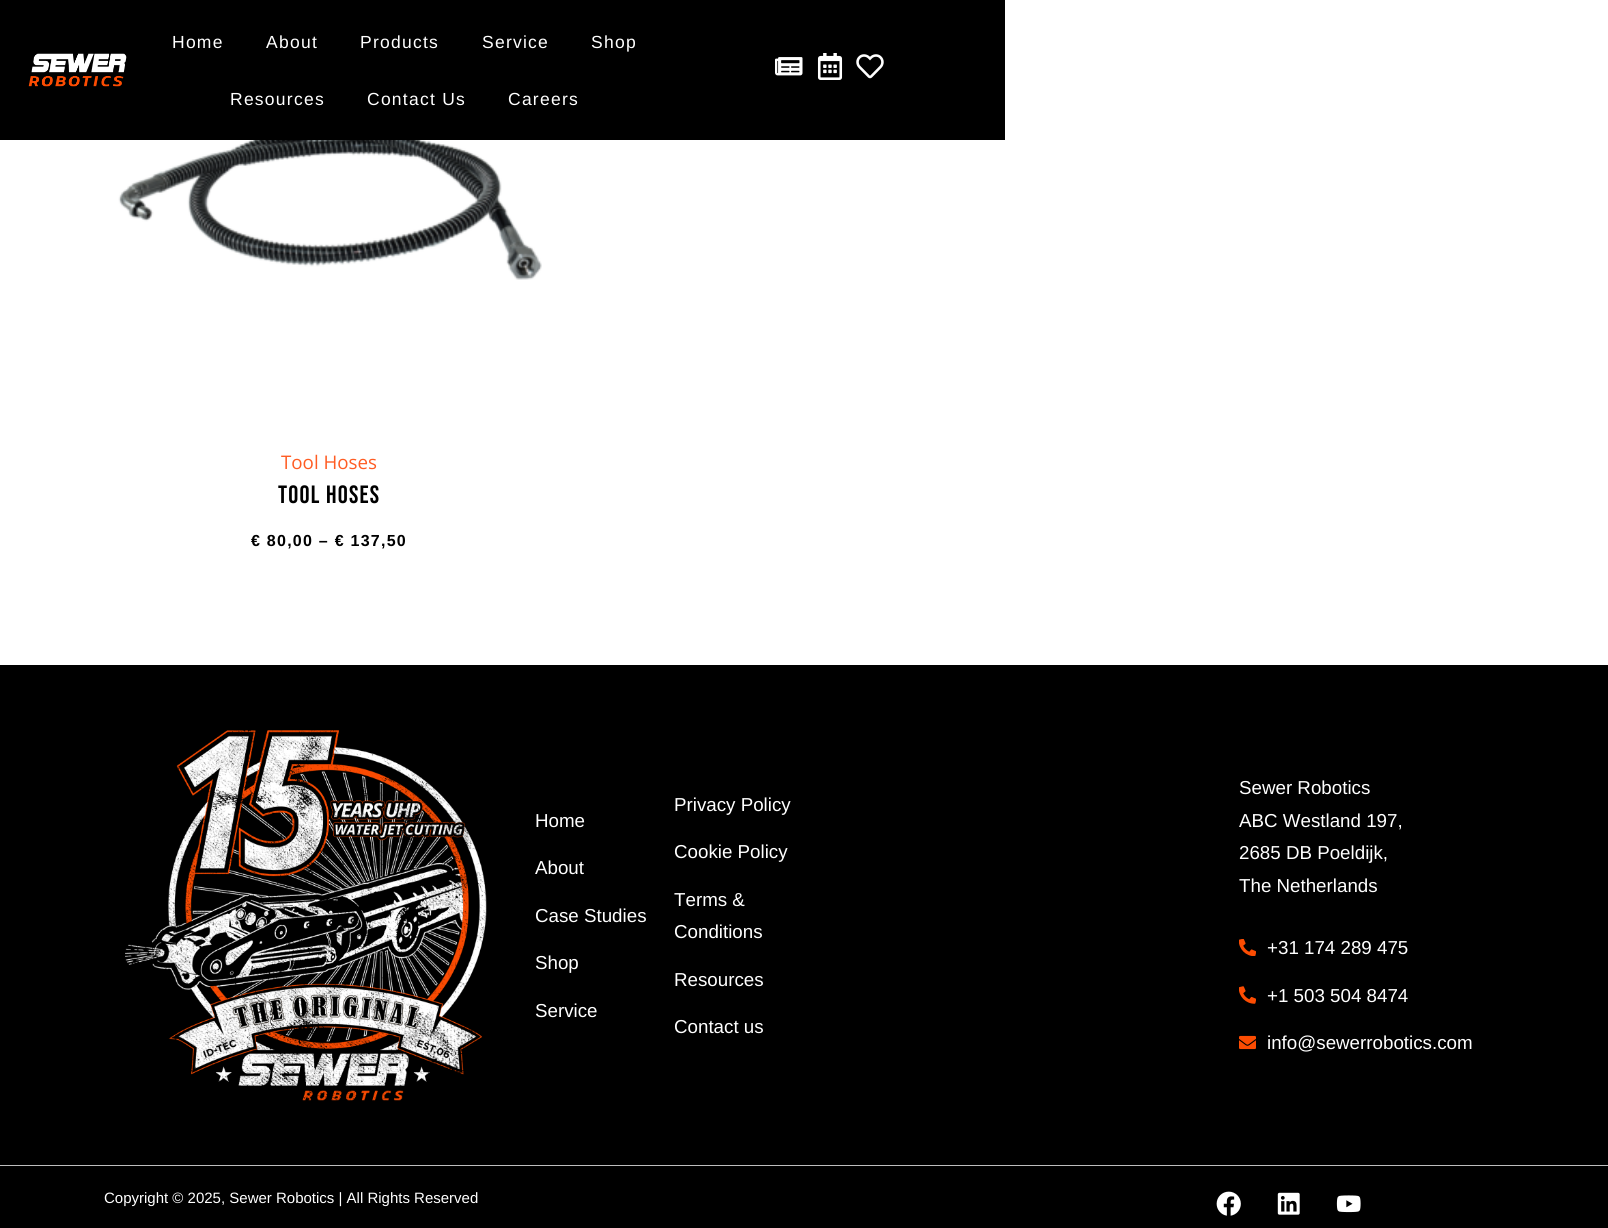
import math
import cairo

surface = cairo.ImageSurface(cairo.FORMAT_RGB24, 1608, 1228)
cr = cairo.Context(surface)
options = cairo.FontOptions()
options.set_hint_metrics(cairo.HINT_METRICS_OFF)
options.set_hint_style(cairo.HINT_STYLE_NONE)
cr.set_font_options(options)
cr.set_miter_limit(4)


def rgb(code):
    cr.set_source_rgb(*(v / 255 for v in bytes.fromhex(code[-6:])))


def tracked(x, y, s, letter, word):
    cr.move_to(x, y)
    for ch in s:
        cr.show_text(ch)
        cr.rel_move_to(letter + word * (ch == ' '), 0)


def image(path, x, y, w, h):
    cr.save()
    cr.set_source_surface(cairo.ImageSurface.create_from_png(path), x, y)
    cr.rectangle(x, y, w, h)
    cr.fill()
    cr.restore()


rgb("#ffffff")
cr.paint()
rgb("#000000")
cr.rectangle(0, 0, 1005, 140)
cr.fill()
image("img/1.png", 28, 53, 99, 34)
image("img/2.png", 775, 57, 28, 19)
image("img/3.png", 817, 53, 26, 27)
image("img/4.png", 856, 54, 28, 25)
image("img/5.png", 118, 140, 424, 140)
cr.rectangle(0, 665, 1608, 500)
cr.fill()
image("img/6.png", 125, 730, 362, 371)
image("img/7.png", 1239, 939, 17, 17)
image("img/8.png", 1239, 986, 17, 18)
image("img/9.png", 1239, 1035, 17, 15)
cr.rectangle(0, 1166, 1608, 62)
cr.fill()
rgb("#bdbdbd")
cr.rectangle(0, 1165, 1608, 1)
cr.fill()
image("img/10.png", 1216, 1191, 25, 25)
image("img/11.png", 1277, 1192, 23, 23)
image("img/12.png", 1336, 1195, 25, 18)
cr.select_font_face("Liberation Sans")
cr.set_font_size(17.5)
rgb("#ffffff")
for x, y, s in [
    (172, 48, "Home"),
    (266, 48, "About"),
    (360, 48, "Products"),
    (482, 48, "Service"),
    (591, 48, "Shop"),
    (230, 105, "Resources"),
    (367, 105, "Contact Us"),
    (508, 105, "Careers"),
]:
    tracked(x, y, s, 1.25, 0)
cr.select_font_face("Open Sans")
cr.set_font_size(18.75)
rgb("#ff5c23")
cr.move_to(281, 469)
cr.show_text("Tool Hoses")
cr.select_font_face("Bebas Neue")
cr.set_font_size(25)
rgb("#000000")
tracked(278, 503, "Tool Hoses", 1.25, 0)
cr.select_font_face("Liberation Sans", cairo.FONT_SLANT_NORMAL, cairo.FONT_WEIGHT_BOLD)
cr.set_font_size(16)
tracked(251, 546, "€ 80,00 – € 137,50", 1.25, 0)
cr.select_font_face("Liberation Sans")
cr.set_font_size(18.75)
rgb("#ffffff")
for x, y, s in [
    (535, 827, "Home"),
    (535, 874, "About"),
    (535, 922, "Case Studies"),
    (535, 969, "Shop"),
    (535, 1017, "Service"),
    (674, 811, "Privacy Policy"),
    (674, 858, "Cookie Policy"),
    (674, 906, "Terms &"),
    (674, 938, "Conditions"),
    (674, 986, "Resources"),
    (674, 1033, "Contact us"),
    (1239, 794, "Sewer Robotics"),
    (1239, 827, "ABC Westland 197,"),
    (1239, 859, "2685 DB Poeldijk,"),
    (1239, 892, "The Netherlands"),
    (1267, 954, "+31 174 289 475"),
    (1267, 1002, "+1 503 504 8474"),
    (1267, 1049, "info@sewerrobotics.com"),
]:
    cr.move_to(x, y)
    cr.show_text(s)
cr.set_font_size(15)
cr.move_to(104, 1203)
cr.show_text("Copyright © 2025, Sewer Robotics | All Rights Reserved")
surface.write_to_png("page.png")
